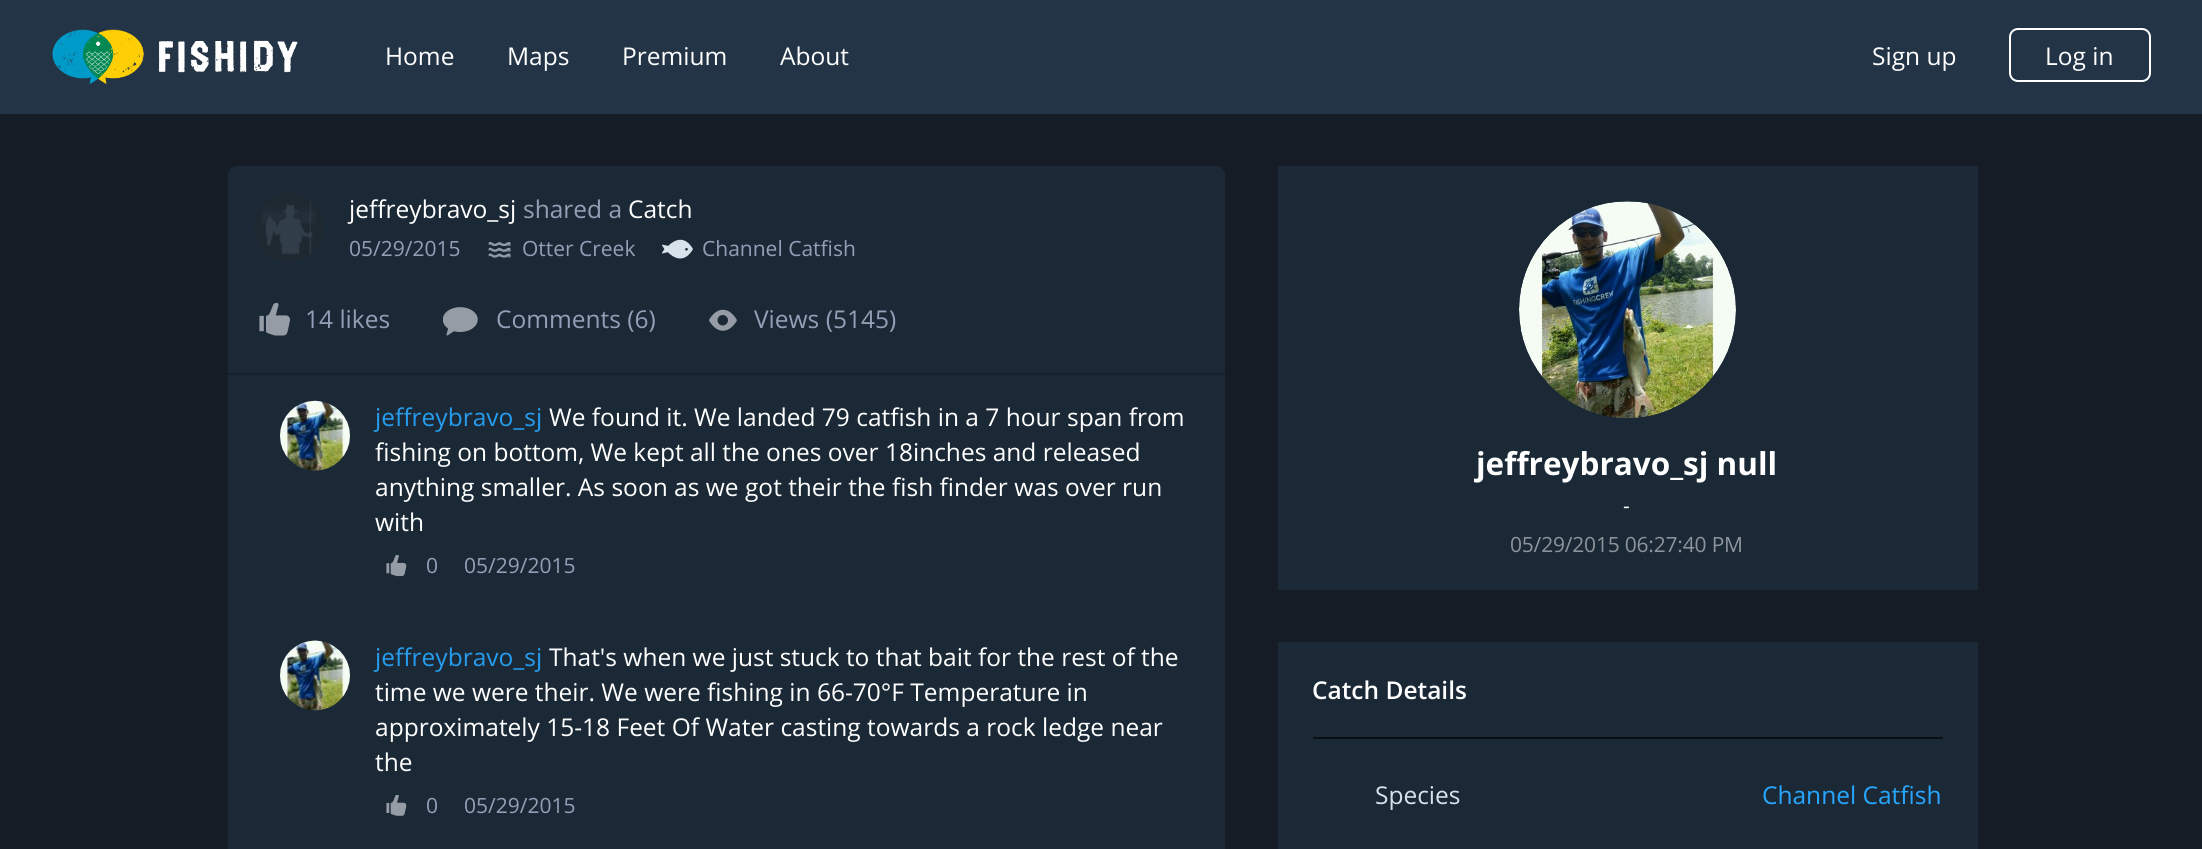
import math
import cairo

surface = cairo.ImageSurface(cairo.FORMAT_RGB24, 2202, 849)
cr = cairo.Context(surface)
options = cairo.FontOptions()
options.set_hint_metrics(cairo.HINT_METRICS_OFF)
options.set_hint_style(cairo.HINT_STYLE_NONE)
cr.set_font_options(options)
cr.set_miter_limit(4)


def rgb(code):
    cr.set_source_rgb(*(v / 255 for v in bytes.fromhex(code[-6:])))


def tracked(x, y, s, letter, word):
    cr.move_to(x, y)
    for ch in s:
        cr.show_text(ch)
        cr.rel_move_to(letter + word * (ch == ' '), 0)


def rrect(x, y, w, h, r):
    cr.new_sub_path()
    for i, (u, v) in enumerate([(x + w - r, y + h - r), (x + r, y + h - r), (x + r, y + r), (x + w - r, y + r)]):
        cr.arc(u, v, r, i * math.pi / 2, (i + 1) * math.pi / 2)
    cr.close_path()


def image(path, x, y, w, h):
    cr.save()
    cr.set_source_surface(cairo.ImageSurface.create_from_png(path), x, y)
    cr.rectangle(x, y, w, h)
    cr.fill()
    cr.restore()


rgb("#151c26")
cr.paint()
rgb("#233446")
cr.rectangle(0, 0, 2202, 114)
cr.fill()
image("img/1.png", 52, 29, 246, 55)
rrect(2010, 29, 140, 52, 8)
rgb("#ffffff")
cr.stroke()
rgb("#1b2936")
rrect(228, 166, 997, 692, 9)
cr.fill()
image("img/2.png", 254, 193, 69, 69)
image("img/3.png", 488, 242, 23, 16)
image("img/4.png", 662, 239, 31, 20)
rgb("#17212c")
cr.rectangle(228, 373, 997, 2)
cr.fill()
image("img/5.png", 259, 303, 32, 33)
image("img/6.png", 443, 307, 35, 29)
image("img/7.png", 709, 309, 28, 22)
image("img/8.png", 280, 400, 70, 71)
image("img/9.png", 386, 555, 21, 22)
image("img/10.png", 280, 640, 71, 71)
image("img/11.png", 386, 795, 21, 21)
rgb("#1b2936")
cr.rectangle(1278, 166, 700, 424)
cr.fill()
image("img/12.png", 1519, 201, 217, 217)
cr.rectangle(1278, 642, 700, 207)
cr.fill()
rgb("#0b1016")
cr.rectangle(1313, 737, 630, 2)
cr.fill()
cr.select_font_face("Open Sans")
cr.set_font_size(24.5)
rgb("#ffffff")
for x, y, s in [
    (385, 65, "Home"),
    (507, 65, "Maps"),
    (622, 65, "Premium"),
    (780, 65, "About"),
    (1872, 65, "Sign up"),
    (2045, 65, "Log in"),
    (349, 218, "jeffreybravo_sj"),
]:
    cr.move_to(x, y)
    cr.show_text(s)
rgb("#949fb7")
cr.move_to(523, 218)
cr.show_text("shared a")
rgb("#ffffff")
cr.move_to(628, 218)
cr.show_text("Catch")
cr.set_font_size(21)
rgb("#949fb7")
for x, y, s in [
    (349, 256, "05/29/2015"),
    (522, 256, "Otter Creek"),
    (702, 256, "Channel Catfish"),
]:
    cr.move_to(x, y)
    cr.show_text(s)
cr.set_font_size(24.5)
for x, y, s in [
    (305, 328, "14 likes"),
    (496, 328, "Comments (6)"),
    (754, 328, "Views (5145)"),
]:
    cr.move_to(x, y)
    cr.show_text(s)
rgb("#269cee")
cr.move_to(375, 426)
cr.show_text("jeffreybravo_sj")
rgb("#ffffff")
for x, y, s in [
    (549, 426, "We found it. We landed 79 catfish in a 7 hour span from"),
    (375, 461, "fishing on bottom, We kept all the ones over 18inches and released"),
    (375, 496, "anything smaller. As soon as we got their the fish finder was over run"),
    (375, 531, "with"),
]:
    cr.move_to(x, y)
    cr.show_text(s)
cr.set_font_size(21)
rgb("#949fb7")
cr.move_to(426, 573)
cr.show_text("0")
cr.move_to(464, 573)
cr.show_text("05/29/2015")
cr.set_font_size(24.5)
rgb("#269cee")
cr.move_to(375, 666)
cr.show_text("jeffreybravo_sj")
rgb("#ffffff")
for x, y, s in [
    (549, 666, "That's when we just stuck to that bait for the rest of the"),
    (375, 701, "time we were their. We were fishing in 66-70°F Temperature in"),
    (375, 736, "approximately 15-18 Feet Of Water casting towards a rock ledge near"),
    (375, 771, "the"),
]:
    cr.move_to(x, y)
    cr.show_text(s)
cr.set_font_size(21)
rgb("#949fb7")
cr.move_to(426, 813)
cr.show_text("0")
cr.move_to(464, 813)
cr.show_text("05/29/2015")
cr.select_font_face("Open Sans", cairo.FONT_SLANT_NORMAL, cairo.FONT_WEIGHT_BOLD)
cr.set_font_size(31.5)
rgb("#ffffff")
cr.move_to(1476, 475)
cr.show_text("jeffreybravo_sj null")
cr.select_font_face("Open Sans")
cr.set_font_size(21)
cr.move_to(1623, 513)
cr.show_text("-")
rgb("#8d949b")
tracked(1510, 552, "05/29/2015 06:27:40 PM", -0.2, 0)
cr.select_font_face("Open Sans SemiBold")
cr.set_font_size(24.5)
rgb("#ffffff")
cr.move_to(1312, 699)
cr.show_text("Catch Details")
cr.select_font_face("Open Sans")
rgb("#d8e2eb")
cr.move_to(1375, 804)
cr.show_text("Species")
rgb("#27a6fe")
cr.move_to(1762, 804)
cr.show_text("Channel Catfish")
surface.write_to_png("page.png")
